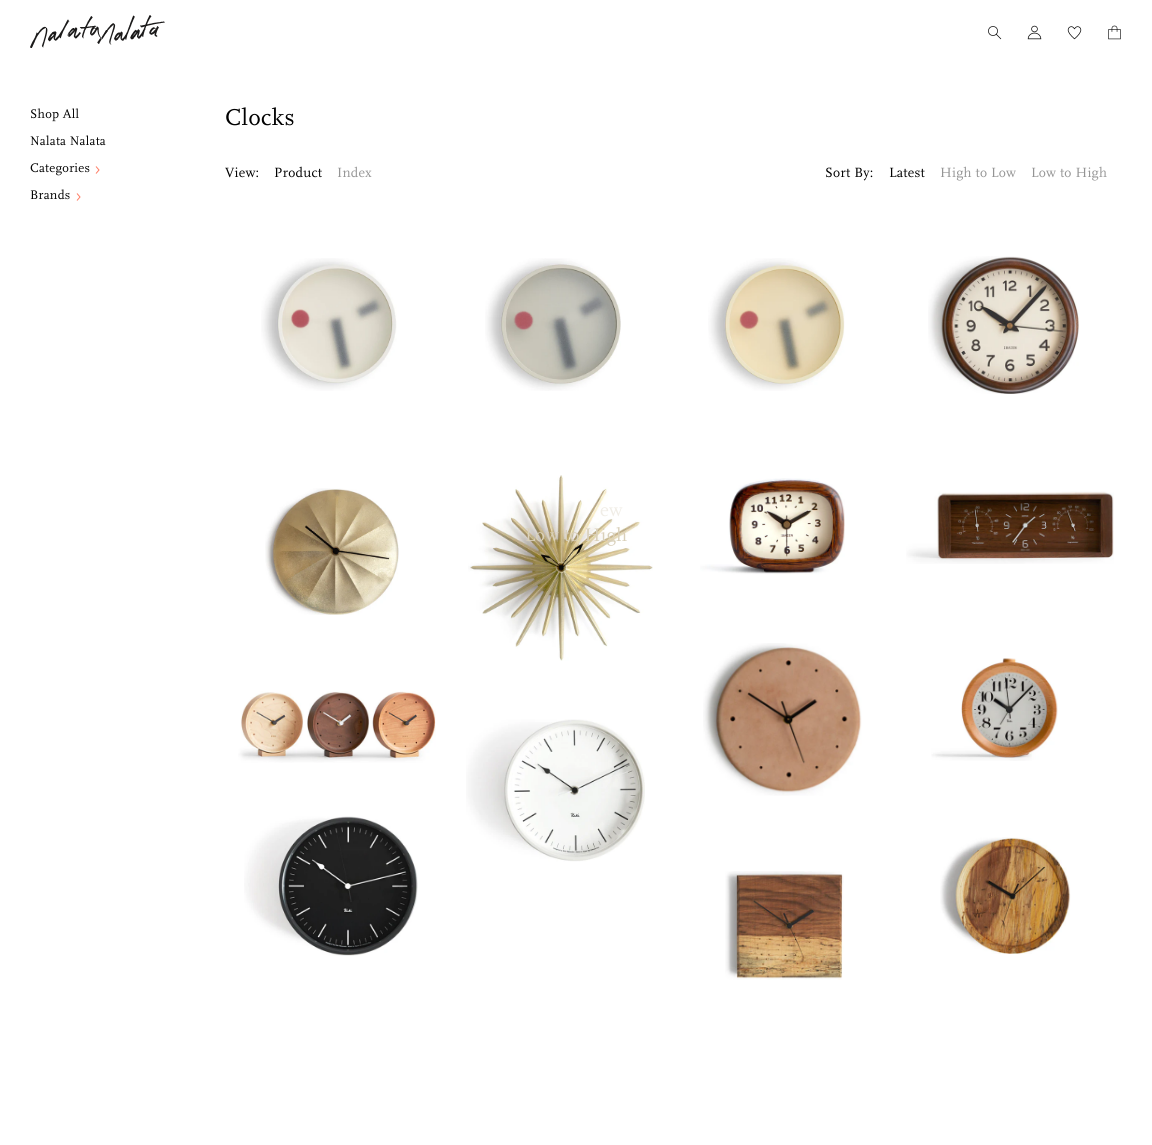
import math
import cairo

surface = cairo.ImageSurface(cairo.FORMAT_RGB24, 1152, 1145)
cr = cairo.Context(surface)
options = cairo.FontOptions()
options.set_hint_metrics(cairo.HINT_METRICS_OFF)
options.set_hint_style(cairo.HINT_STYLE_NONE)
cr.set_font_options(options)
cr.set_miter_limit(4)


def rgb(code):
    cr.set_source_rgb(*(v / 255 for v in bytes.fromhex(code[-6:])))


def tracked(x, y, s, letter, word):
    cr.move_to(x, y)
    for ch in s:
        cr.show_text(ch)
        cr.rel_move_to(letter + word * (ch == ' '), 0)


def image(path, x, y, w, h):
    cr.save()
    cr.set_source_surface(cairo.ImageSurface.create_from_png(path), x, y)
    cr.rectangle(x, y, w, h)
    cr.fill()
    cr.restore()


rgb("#ffffff")
cr.paint()
image("img/1.png", 30, 15, 135, 33)
cr.arc(993, 31, 4.5, 0, 2 * math.pi)
rgb("#000000")
cr.set_line_width(0.7)
cr.stroke()
cr.new_path()
cr.move_to(996, 34)
cr.line_to(1001, 39)
cr.stroke()
image("img/2.png", 1027, 25, 15, 15)
image("img/3.png", 1067, 26, 15, 14)
image("img/4.png", 1108, 25, 13, 15)
cr.new_path()
cr.move_to(96, 166.5)
cr.line_to(99, 170)
cr.line_to(96, 173.5)
rgb("#ff7d65")
cr.set_line_width(1)
cr.stroke()
cr.new_path()
cr.move_to(77, 193.5)
cr.line_to(80, 197)
cr.line_to(77, 200.5)
cr.stroke()
image("img/5.png", 261, 258, 136, 133)
image("img/6.png", 485, 258, 136, 133)
image("img/7.png", 708, 258, 137, 133)
image("img/8.png", 928, 256, 151, 138)
image("img/9.png", 265, 488, 134, 127)
image("img/10.png", 468, 475, 185, 186)
image("img/11.png", 700, 478, 145, 97)
image("img/12.png", 906, 491, 208, 73)
image("img/13.png", 238, 691, 198, 72)
image("img/14.png", 466, 719, 179, 143)
image("img/15.png", 703, 643, 159, 153)
image("img/16.png", 931, 658, 127, 103)
image("img/17.png", 244, 816, 174, 140)
image("img/18.png", 725, 871, 119, 109)
image("img/19.png", 940, 837, 131, 117)
cr.select_font_face("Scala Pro")
cr.set_font_size(13)
rgb("#000000")
for x, y, s in [
    (30, 118, "Shop All"),
    (30, 145, "Nalata Nalata"),
    (30, 172, "Categories"),
    (30, 199, "Brands"),
]:
    tracked(x, y, s, 0.25, 0)
cr.set_font_size(24)
tracked(225, 125, "Clocks", 0.5, 0)
cr.set_font_size(14)
tracked(225, 177, "View:", 0.25, 0)
tracked(274, 177, "Product", 0.25, 0)
rgb("#949494")
tracked(337, 177, "Index", 0.25, 0)
rgb("#000000")
tracked(825, 177, "Sort By:", 0.25, 0)
tracked(889, 177, "Latest", 0.25, 0)
rgb("#949494")
tracked(940, 177, "High to Low", 0.25, 0)
tracked(1031, 177, "Low to High", 0.25, 0)
cr.set_font_size(19)
rgb("#f0ede6")
tracked(600, 516, "ew", 0.25, 0)
rgb("#d9d0ba")
tracked(525, 541, "Low to High", 0.25, 0)
surface.write_to_png("page.png")
